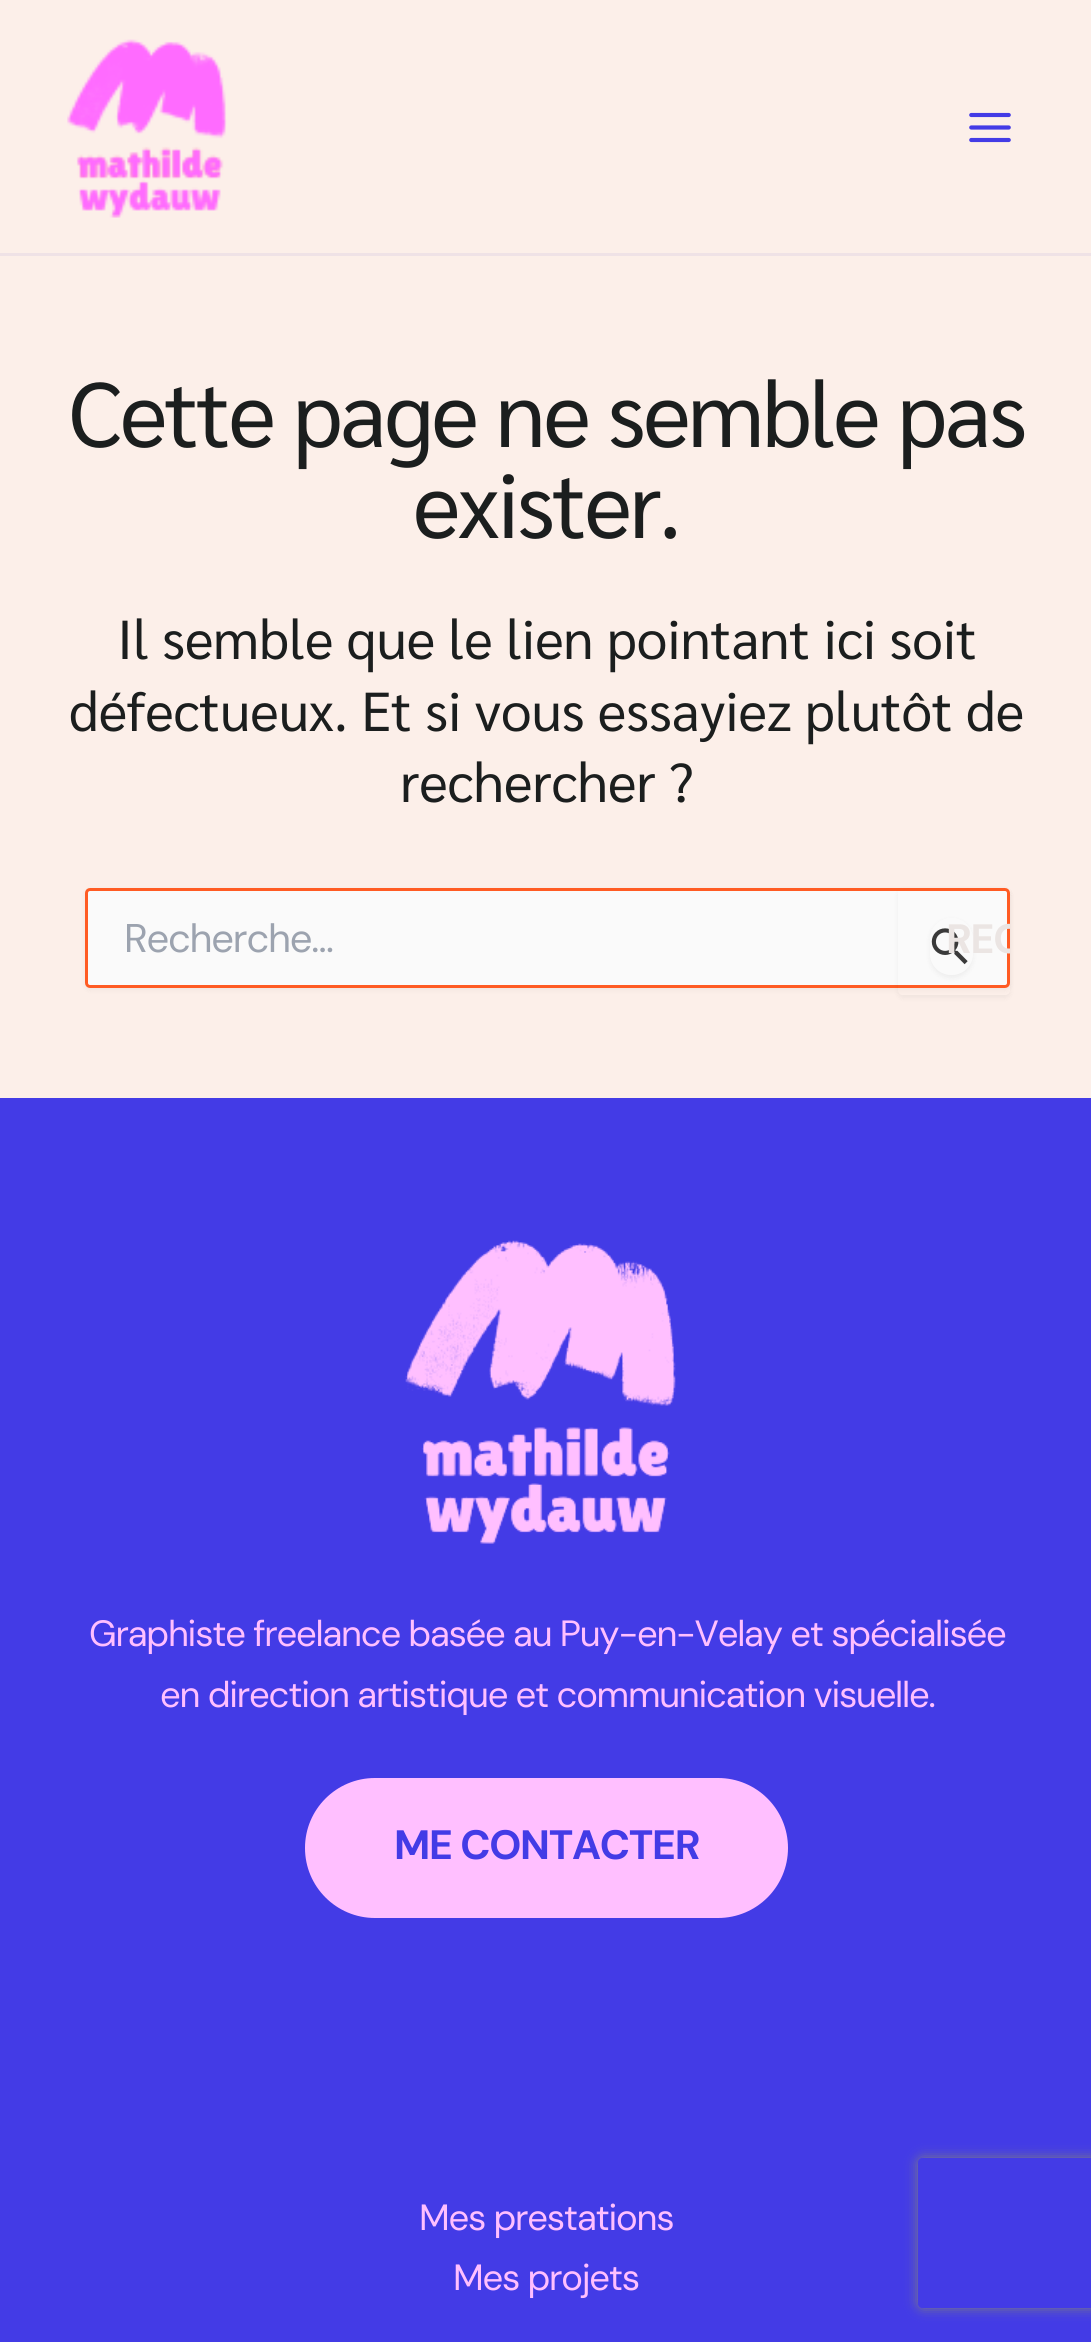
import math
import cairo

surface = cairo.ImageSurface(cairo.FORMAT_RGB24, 1091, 2342)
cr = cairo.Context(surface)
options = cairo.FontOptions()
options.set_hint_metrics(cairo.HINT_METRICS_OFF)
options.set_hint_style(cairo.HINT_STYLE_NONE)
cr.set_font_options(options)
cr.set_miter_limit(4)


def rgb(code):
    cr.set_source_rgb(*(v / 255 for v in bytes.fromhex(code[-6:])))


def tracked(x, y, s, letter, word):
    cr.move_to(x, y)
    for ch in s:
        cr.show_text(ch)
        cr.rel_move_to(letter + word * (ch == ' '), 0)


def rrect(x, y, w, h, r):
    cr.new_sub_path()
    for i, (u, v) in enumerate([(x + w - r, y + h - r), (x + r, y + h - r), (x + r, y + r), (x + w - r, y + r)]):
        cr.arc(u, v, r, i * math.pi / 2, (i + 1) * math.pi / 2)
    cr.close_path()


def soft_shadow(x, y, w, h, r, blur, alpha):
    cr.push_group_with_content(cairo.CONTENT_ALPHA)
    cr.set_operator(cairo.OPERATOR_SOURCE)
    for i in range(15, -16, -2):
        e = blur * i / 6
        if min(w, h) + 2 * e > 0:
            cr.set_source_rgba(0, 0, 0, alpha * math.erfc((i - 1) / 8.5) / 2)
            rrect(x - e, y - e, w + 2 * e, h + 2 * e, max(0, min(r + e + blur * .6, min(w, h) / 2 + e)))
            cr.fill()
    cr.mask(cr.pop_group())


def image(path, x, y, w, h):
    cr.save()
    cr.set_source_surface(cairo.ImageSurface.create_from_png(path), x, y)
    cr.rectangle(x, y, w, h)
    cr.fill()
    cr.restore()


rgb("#fcefe9")
cr.paint()
rgb("#efe2e6")
cr.rectangle(0, 253, 1091, 3)
cr.fill()
image("img/1.png", 67, 39, 160, 179)
image("img/2.png", 969, 112, 42, 31)
rgb("#000000")
soft_shadow(85, 890, 925, 100, 5, 2.5, 0.05)
rgb("#fafafa")
rrect(86.5, 889.5, 922, 97, 3.5)
cr.fill_preserve()
rgb("#ff5b23")
cr.set_line_width(3)
cr.stroke()
cr.save()
cr.set_fill_rule(cairo.FILL_RULE_EVEN_ODD)
cr.new_path()
cr.move_to(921, 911)
cr.line_to(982, 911)
cr.line_to(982, 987)
cr.line_to(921, 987)
cr.close_path()
cr.move_to(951.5, 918)
cr.curve_to(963.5, 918, 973, 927.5, 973, 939.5)
cr.line_to(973, 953.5)
cr.curve_to(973, 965.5, 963.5, 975, 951.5, 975)
cr.curve_to(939.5, 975, 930, 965.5, 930, 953.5)
cr.line_to(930, 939.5)
cr.curve_to(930, 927.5, 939.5, 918, 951.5, 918)
cr.close_path()
cr.clip()
rgb("#000000")
soft_shadow(930, 920, 43, 58, 21.5, 2.5, 0.05)
cr.restore()
image("img/3.png", 931, 928, 37, 37)
cr.save()
cr.set_fill_rule(cairo.FILL_RULE_EVEN_ODD)
cr.new_path()
cr.move_to(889, 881)
cr.line_to(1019, 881)
cr.line_to(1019, 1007)
cr.line_to(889, 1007)
cr.close_path()
cr.move_to(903, 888)
cr.line_to(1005, 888)
cr.curve_to(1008, 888, 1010, 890, 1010, 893)
cr.line_to(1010, 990)
cr.curve_to(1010, 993, 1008, 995, 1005, 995)
cr.line_to(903, 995)
cr.curve_to(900, 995, 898, 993, 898, 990)
cr.line_to(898, 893)
cr.curve_to(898, 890, 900, 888, 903, 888)
cr.close_path()
cr.clip()
rgb("#000000")
soft_shadow(898, 890, 112, 108, 5, 2.5, 0.05)
cr.restore()
rgb("#433be6")
cr.rectangle(0, 1098, 1091, 1244)
cr.fill()
image("img/4.png", 405, 1240, 271, 304)
rgb("#ffbfff")
rrect(305, 1778, 483, 140, 70)
cr.fill()
cr.save()
cr.set_fill_rule(cairo.FILL_RULE_EVEN_ODD)
cr.new_path()
cr.move_to(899, 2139)
cr.line_to(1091, 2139)
cr.line_to(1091, 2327)
cr.line_to(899, 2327)
cr.close_path()
cr.move_to(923, 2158)
cr.line_to(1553, 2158)
cr.curve_to(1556, 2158, 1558, 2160, 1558, 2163)
cr.line_to(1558, 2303)
cr.curve_to(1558, 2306, 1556, 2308, 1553, 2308)
cr.line_to(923, 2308)
cr.curve_to(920, 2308, 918, 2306, 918, 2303)
cr.line_to(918, 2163)
cr.curve_to(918, 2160, 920, 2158, 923, 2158)
cr.close_path()
cr.clip()
rgb("#808080")
soft_shadow(918, 2158, 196, 150, 5, 6, 1)
cr.restore()
cr.select_font_face("Sarabun")
cr.set_font_size(91.25)
rgb("#1b1e1e")
tracked(69, 447, "Cette page ne semble pas", -2.5, 0)
tracked(413, 538, "exister.", -2.5, 0)
cr.set_font_size(54.75)
for x, y, s in [
    (117, 659, "Il semble que le lien pointant ici soit"),
    (69, 731, "défectueux. Et si vous essayiez plutôt de"),
    (400, 802, "rechercher ?"),
]:
    cr.move_to(x, y)
    cr.show_text(s)
cr.select_font_face("DM Sans")
cr.set_font_size(40)
rgb("#9ca3af")
tracked(124, 952, "Recherche…", -1.25, 0)
cr.save()
rrect(898, 888, 112, 107, 5)
cr.clip()
cr.select_font_face("DM Sans", cairo.FONT_SLANT_NORMAL, cairo.FONT_WEIGHT_BOLD)
cr.set_font_size(41)
rgb("#ebe5e3")
tracked(946, 953, "REC", -1.25, 0)
cr.restore()
cr.set_font_size(36.5)
rgb("#ffbfff")
tracked(89, 1646, "Graphiste freelance basée au Puy-en-Velay et spécialisée", -1.25, 0)
tracked(160, 1707, "en direction artistique et communication visuelle.", -1.25, 0)
cr.select_font_face("DM Sans", cairo.FONT_SLANT_NORMAL, cairo.FONT_WEIGHT_BOLD)
cr.set_font_size(41)
rgb("#433be6")
tracked(394, 1859, "ME CONTACTER", -1.25, 0)
cr.select_font_face("DM Sans")
cr.set_font_size(36.5)
rgb("#ffbfff")
tracked(419, 2230, "Mes prestations", -1.25, 0)
tracked(453, 2290, "Mes projets", -1.25, 0)
surface.write_to_png("page.png")
